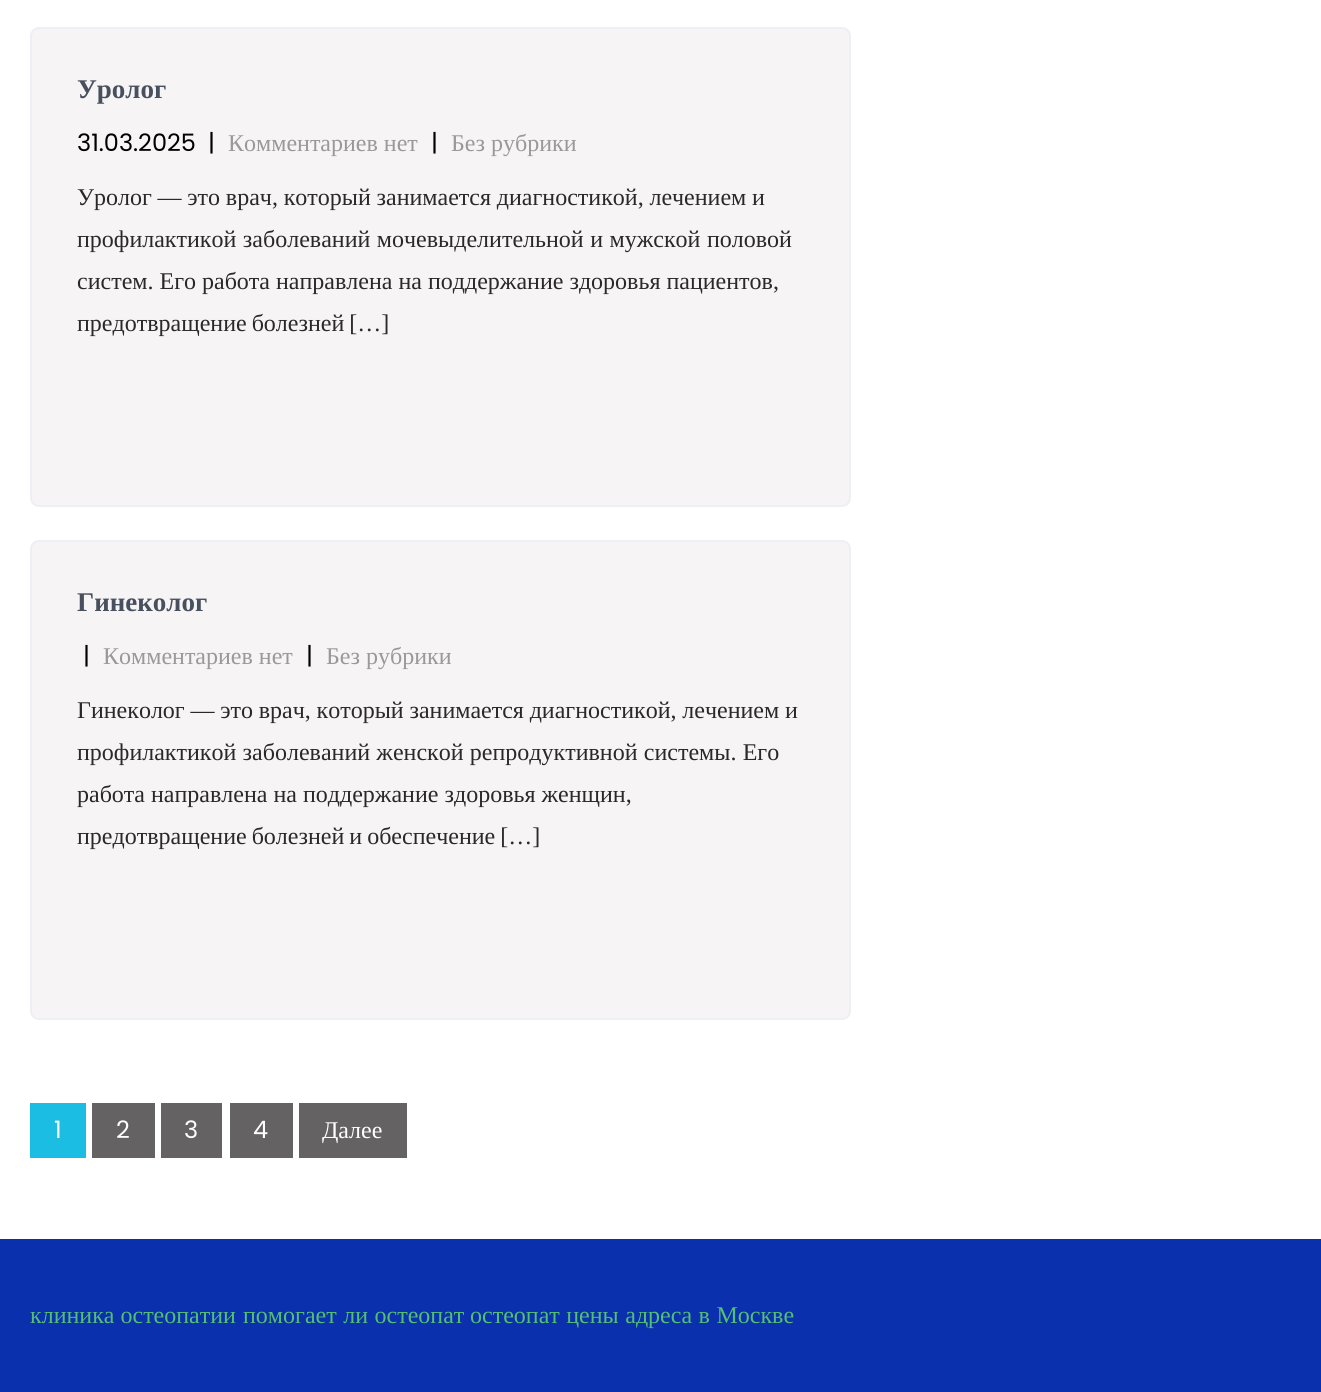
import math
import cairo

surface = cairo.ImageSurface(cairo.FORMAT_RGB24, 1321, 1392)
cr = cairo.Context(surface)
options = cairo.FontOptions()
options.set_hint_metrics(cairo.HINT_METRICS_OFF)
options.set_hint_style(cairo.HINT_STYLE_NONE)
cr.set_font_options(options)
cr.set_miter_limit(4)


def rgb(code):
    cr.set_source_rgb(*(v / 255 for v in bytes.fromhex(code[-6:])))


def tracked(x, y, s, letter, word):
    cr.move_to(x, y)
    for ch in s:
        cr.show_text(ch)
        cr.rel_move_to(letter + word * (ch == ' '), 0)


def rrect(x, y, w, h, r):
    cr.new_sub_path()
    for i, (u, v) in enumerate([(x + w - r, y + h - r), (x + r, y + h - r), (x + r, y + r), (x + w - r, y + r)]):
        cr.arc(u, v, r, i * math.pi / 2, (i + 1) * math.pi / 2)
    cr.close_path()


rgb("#ffffff")
cr.paint()
rgb("#f6f4f4")
rrect(31, 28, 819, 478, 8)
cr.fill_preserve()
rgb("#eeeff5")
cr.stroke()
rgb("#f6f4f4")
rrect(31, 541, 819, 478, 8)
cr.fill_preserve()
rgb("#eeeff5")
cr.stroke()
for x, y, w, h, color in [
    (30, 1103, 56, 55, "#1bbde3"),
    (92, 1103, 63, 55, "#646262"),
    (161, 1103, 61, 55, "#646262"),
    (230, 1103, 63, 55, "#646262"),
    (299, 1103, 108, 55, "#646262"),
    (0, 1239, 1321, 153, "#0a30ad"),
]:
    rgb(color)
    cr.rectangle(x, y, w, h)
    cr.fill()
cr.select_font_face("Liberation Serif", cairo.FONT_SLANT_NORMAL, cairo.FONT_WEIGHT_BOLD)
cr.set_font_size(27)
rgb("#484f5e")
cr.move_to(77, 98)
cr.show_text("Уролог")
cr.select_font_face("Poppins")
cr.set_font_size(24)
rgb("#000000")
cr.move_to(77, 151)
cr.show_text("31.03.2025")
cr.move_to(208, 151)
cr.show_text("|")
cr.select_font_face("Liberation Serif")
rgb("#999999")
cr.move_to(228, 151)
cr.show_text("Комментариев нет")
cr.select_font_face("Poppins")
rgb("#000000")
cr.move_to(431, 151)
cr.show_text("|")
cr.select_font_face("Liberation Serif")
rgb("#999999")
cr.move_to(451, 151)
cr.show_text("Без рубрики")
rgb("#292929")
tracked(77, 205, "Уролог — это врач, который занимается диагностикой, лечением и", 0, -0.25)
tracked(77, 247, "профилактикой заболеваний мочевыделительной и мужской половой", 0, 0.5)
cr.move_to(77, 289)
cr.show_text("систем. Его работа направлена на поддержание здоровья пациентов,")
tracked(77, 331, "предотвращение болезней […]", 0, -1)
cr.select_font_face("Liberation Serif", cairo.FONT_SLANT_NORMAL, cairo.FONT_WEIGHT_BOLD)
cr.set_font_size(27)
rgb("#484f5e")
cr.move_to(77, 611)
cr.show_text("Гинеколог")
cr.select_font_face("Poppins")
cr.set_font_size(24)
rgb("#000000")
cr.move_to(83, 664)
cr.show_text("|")
cr.select_font_face("Liberation Serif")
rgb("#999999")
cr.move_to(103, 664)
cr.show_text("Комментариев нет")
cr.select_font_face("Poppins")
rgb("#000000")
cr.move_to(306, 664)
cr.show_text("|")
cr.select_font_face("Liberation Serif")
rgb("#999999")
cr.move_to(326, 664)
cr.show_text("Без рубрики")
rgb("#292929")
tracked(77, 718, "Гинеколог — это врач, который занимается диагностикой, лечением и", 0, -0.25)
tracked(77, 760, "профилактикой заболеваний женской репродуктивной системы. Его", 0, 0.25)
cr.move_to(77, 802)
cr.show_text("работа направлена на поддержание здоровья женщин,")
tracked(77, 844, "предотвращение болезней и обеспечение […]", 0, -1)
cr.select_font_face("Poppins")
rgb("#ffffff")
for x, y, s in [
    (54, 1138, "1"),
    (116, 1138, "2"),
    (184, 1138, "3"),
    (253, 1138, "4"),
]:
    cr.move_to(x, y)
    cr.show_text(s)
cr.select_font_face("Liberation Serif")
cr.move_to(322, 1138)
cr.show_text("Далее")
rgb("#54be73")
cr.move_to(30, 1323)
cr.show_text("клиника остеопатии")
tracked(243, 1323, "помогает ли остеопат", 0, 0.5)
tracked(470, 1323, "остеопат цены адреса в Москве", 0, 0.5)
surface.write_to_png("page.png")
